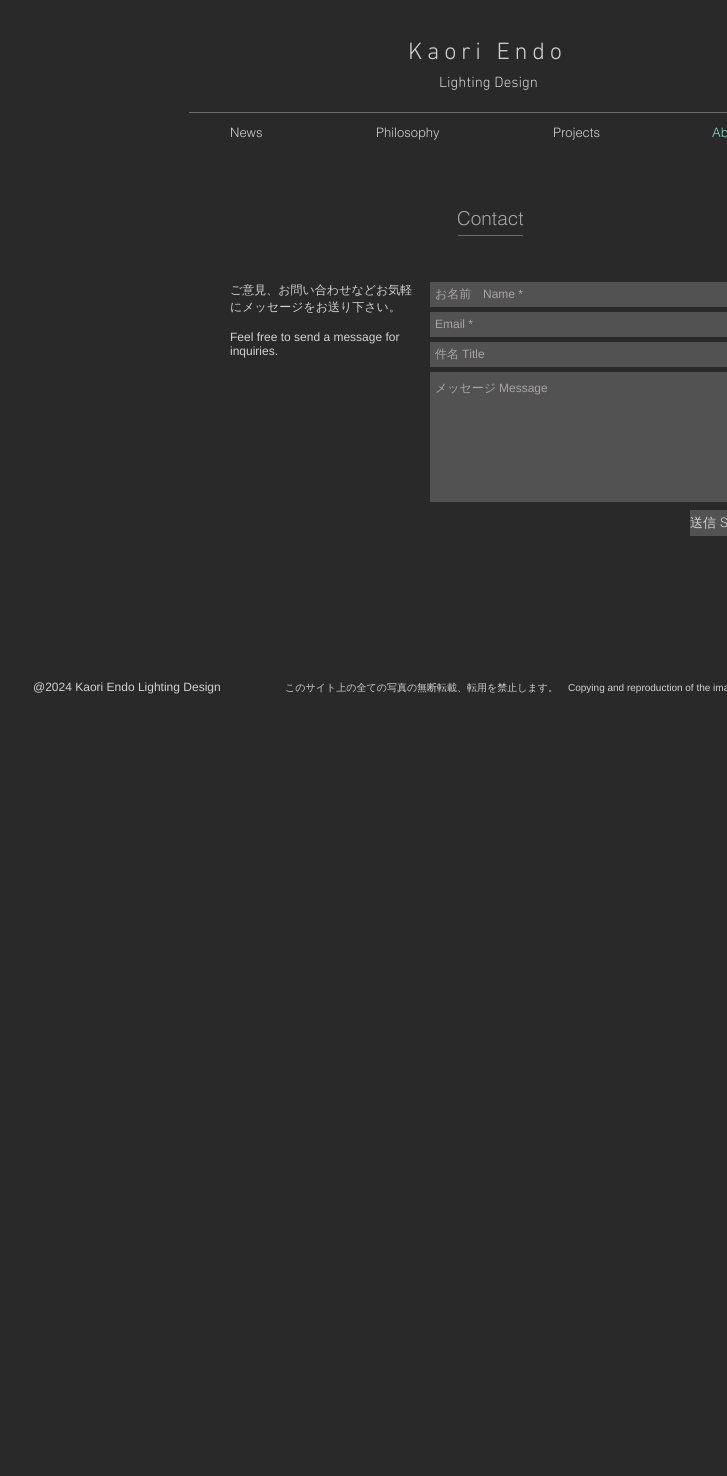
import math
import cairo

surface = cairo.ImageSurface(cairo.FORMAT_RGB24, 727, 1476)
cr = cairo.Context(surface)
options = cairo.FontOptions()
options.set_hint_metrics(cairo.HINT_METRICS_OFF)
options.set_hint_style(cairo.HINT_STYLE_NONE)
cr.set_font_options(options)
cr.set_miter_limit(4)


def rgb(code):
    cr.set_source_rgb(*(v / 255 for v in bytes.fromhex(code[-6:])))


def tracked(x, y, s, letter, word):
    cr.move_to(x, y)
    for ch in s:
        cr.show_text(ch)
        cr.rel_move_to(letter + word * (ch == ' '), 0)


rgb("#292929")
cr.paint()
for x, y, w, h, color in [
    (189, 112, 538, 1, "#6d6c6c"),
    (458, 235, 65, 1, "#6d6c6c"),
    (430, 282, 297, 25, "#535252"),
    (430, 312, 297, 25, "#535252"),
    (430, 342, 297, 25, "#535252"),
    (430, 372, 297, 130, "#535252"),
    (690, 510, 37, 26, "#535252"),
]:
    rgb(color)
    cr.rectangle(x, y, w, h)
    cr.fill()
cr.select_font_face("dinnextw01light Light")
cr.set_font_size(24)
rgb("#d2d1d1")
tracked(408, 59, "Kaori Endo", 4.75, 0)
cr.set_font_size(15)
cr.move_to(439, 87)
cr.show_text("Lighting Design")
cr.select_font_face("helvetica Light")
cr.set_font_size(13)
for x, y, s in [
    (230, 137, "News"),
    (376, 137, "Philosophy"),
    (553, 137, "Projects"),
]:
    cr.move_to(x, y)
    cr.show_text(s)
rgb("#8dd3cd")
cr.move_to(712, 137)
cr.show_text("Ab")
cr.set_font_size(19)
rgb("#a6a4a4")
cr.move_to(457, 225)
cr.show_text("Contact")
cr.select_font_face("WenQuanYi Zen Hei Medium")
cr.set_font_size(12)
rgb("#d2d1d1")
cr.move_to(230, 294)
cr.show_text("ご意見、お問い合わせなどお気軽")
cr.move_to(230, 311)
cr.show_text("にメッセージをお送り下さい。")
cr.select_font_face("Liberation Sans")
cr.move_to(230, 341)
cr.show_text("Feel free to send a message for")
cr.move_to(230, 355)
cr.show_text("inquiries.")
cr.select_font_face("WenQuanYi Zen Hei Medium")
rgb("#a6a4a4")
cr.move_to(435, 298)
cr.show_text("お名前")
cr.select_font_face("Liberation Sans")
cr.move_to(483, 298)
cr.show_text("Name *")
cr.move_to(435, 328)
cr.show_text("Email *")
cr.select_font_face("WenQuanYi Zen Hei Medium")
cr.move_to(435, 358)
cr.show_text("件名")
cr.select_font_face("Liberation Sans")
cr.move_to(462, 358)
cr.show_text("Title")
cr.select_font_face("WenQuanYi Zen Hei Medium")
cr.move_to(435, 392)
cr.show_text("メッセージ")
cr.select_font_face("Liberation Sans")
cr.move_to(499, 392)
cr.show_text("Message")
cr.select_font_face("WenQuanYi Zen Hei Medium")
cr.set_font_size(13)
rgb("#d2d1d1")
cr.move_to(690, 527)
cr.show_text("送信")
cr.select_font_face("helvetica Light")
cr.move_to(720, 527)
cr.show_text("S")
cr.select_font_face("Liberation Sans")
cr.set_font_size(12)
cr.move_to(33, 691)
cr.show_text("@2024 Kaori Endo Lighting Design")
cr.select_font_face("WenQuanYi Zen Hei Medium")
cr.set_font_size(10)
cr.move_to(285, 691)
cr.show_text("このサイト上の全ての写真の無断転載、転用を禁止します。")
cr.select_font_face("Liberation Sans")
cr.move_to(568, 691)
cr.show_text("Copying and reproduction of the ima")
surface.write_to_png("page.png")
